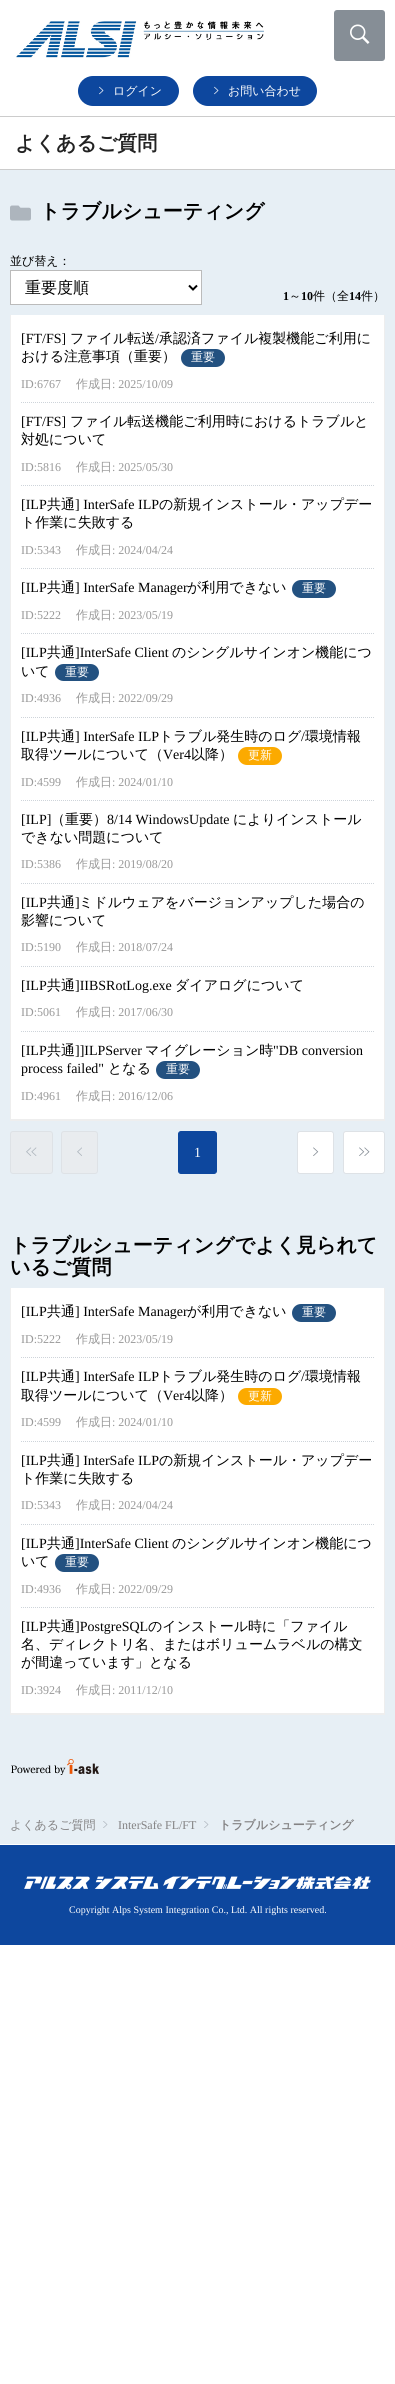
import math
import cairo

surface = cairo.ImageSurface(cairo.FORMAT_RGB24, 395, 2384)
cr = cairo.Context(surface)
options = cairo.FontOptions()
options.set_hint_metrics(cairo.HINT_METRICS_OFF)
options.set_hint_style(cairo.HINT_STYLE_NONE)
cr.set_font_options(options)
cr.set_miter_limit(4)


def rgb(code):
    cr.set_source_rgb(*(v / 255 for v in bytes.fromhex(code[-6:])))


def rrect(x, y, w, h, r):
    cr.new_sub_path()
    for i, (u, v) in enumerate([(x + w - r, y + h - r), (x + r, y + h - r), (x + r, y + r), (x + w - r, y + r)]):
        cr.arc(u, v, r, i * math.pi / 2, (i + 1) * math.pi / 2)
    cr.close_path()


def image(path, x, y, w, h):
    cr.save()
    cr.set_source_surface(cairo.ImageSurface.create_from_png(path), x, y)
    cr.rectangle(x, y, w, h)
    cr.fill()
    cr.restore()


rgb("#ffffff")
cr.paint()
rgb("#cccccc")
cr.rectangle(0, 116, 395, 1)
cr.fill()
image("img/1.png", 16, 21, 248, 37)
rgb("#0d479e")
rrect(78, 76, 101, 30, 15)
cr.fill()
image("img/2.png", 99, 86, 5, 9)
rrect(193, 76, 124, 30, 15)
cr.fill()
image("img/2.png", 214, 86, 5, 9)
rgb("#e7eff5")
cr.rectangle(0, 170, 395, 1674)
cr.fill()
rgb("#868e96")
rrect(334, 10, 51, 51, 3)
cr.fill()
image("img/3.png", 350, 24, 20, 20)
rgb("#cccccc")
cr.rectangle(0, 169, 395, 1)
cr.fill()
image("img/4.png", 10, 205, 21, 16)
rgb("#ffffff")
cr.rectangle(10.5, 270.5, 191, 34)
cr.fill_preserve()
rgb("#bbbbbb")
cr.set_line_width(1)
cr.stroke()
cr.new_path()
cr.move_to(189, 285.5)
cr.line_to(193, 289.5)
cr.line_to(197, 285.5)
rgb("#000000")
cr.set_line_width(2)
cr.stroke()
for x, y, w, h, color in [
    (11, 315, 373, 804, "#ffffff"),
    (384, 315, 1, 806, "#eeeeee"),
    (10, 1119, 375, 2, "#eeeeee"),
    (10, 315, 1, 806, "#eeeeee"),
]:
    rgb(color)
    cr.rectangle(x, y, w, h)
    cr.fill()
rgb("#235180")
rrect(181, 349, 44, 18, 9)
cr.fill()
cr.new_path()
cr.move_to(21, 402.5)
cr.line_to(374, 402.5)
rgb("#ced4da")
cr.set_line_width(1)
cr.set_dash([1, 1])
cr.stroke()
cr.new_path()
cr.move_to(21, 485.5)
cr.line_to(374, 485.5)
cr.stroke()
cr.new_path()
cr.move_to(21, 568.5)
cr.line_to(374, 568.5)
cr.stroke()
rgb("#235180")
rrect(292, 580, 44, 18, 9)
cr.fill()
cr.new_path()
cr.move_to(21, 633.5)
cr.line_to(374, 633.5)
rgb("#ced4da")
cr.stroke()
rgb("#235180")
rrect(55, 664, 44, 17, 8.5)
cr.fill()
cr.new_path()
cr.move_to(21, 717.5)
cr.line_to(374, 717.5)
rgb("#ced4da")
cr.stroke()
rgb("#fcaa00")
rrect(238, 747, 44, 18, 9)
cr.fill()
cr.new_path()
cr.move_to(21, 800.5)
cr.line_to(374, 800.5)
rgb("#ced4da")
cr.stroke()
cr.new_path()
cr.move_to(21, 883.5)
cr.line_to(374, 883.5)
cr.stroke()
cr.new_path()
cr.move_to(21, 966.5)
cr.line_to(374, 966.5)
cr.stroke()
cr.new_path()
cr.move_to(21, 1031.5)
cr.line_to(374, 1031.5)
cr.stroke()
rgb("#235180")
rrect(156, 1061, 44, 18, 9)
cr.fill()
rgb("#e9ecef")
rrect(10.5, 1131.5, 42, 42, 2.5)
cr.fill_preserve()
rgb("#dee2e6")
cr.set_dash([])
cr.stroke()
image("img/5.png", 26, 1147, 11, 9)
rgb("#e9ecef")
rrect(61.5, 1131.5, 36, 42, 2.5)
cr.fill_preserve()
rgb("#dee2e6")
cr.stroke()
image("img/6.png", 77, 1147, 5, 9)
rgb("#0d479e")
rrect(178.5, 1131.5, 38, 42, 2.5)
cr.fill_preserve()
cr.stroke()
rgb("#ffffff")
rrect(297.5, 1131.5, 36, 42, 2.5)
cr.fill_preserve()
rgb("#dee2e6")
cr.stroke()
image("img/7.png", 313, 1147, 6, 9)
rgb("#ffffff")
rrect(343.5, 1131.5, 41, 42, 2.5)
cr.fill_preserve()
rgb("#dee2e6")
cr.stroke()
image("img/8.png", 359, 1147, 11, 9)
for x, y, w, h, color in [
    (11, 1288, 373, 425, "#ffffff"),
    (384, 1288, 1, 427, "#eeeeee"),
    (10, 1713, 375, 2, "#eeeeee"),
    (10, 1288, 1, 427, "#eeeeee"),
]:
    rgb(color)
    cr.rectangle(x, y, w, h)
    cr.fill()
rgb("#235180")
rrect(292, 1304, 44, 18, 9)
cr.fill()
cr.new_path()
cr.move_to(21, 1357.5)
cr.line_to(374, 1357.5)
rgb("#ced4da")
cr.set_dash([1, 1])
cr.stroke()
rgb("#fcaa00")
rrect(238, 1388, 44, 17, 8.5)
cr.fill()
cr.new_path()
cr.move_to(21, 1441.5)
cr.line_to(374, 1441.5)
rgb("#ced4da")
cr.stroke()
cr.new_path()
cr.move_to(21, 1524.5)
cr.line_to(374, 1524.5)
cr.stroke()
rgb("#235180")
rrect(55, 1554, 44, 18, 9)
cr.fill()
cr.new_path()
cr.move_to(21, 1607.5)
cr.line_to(374, 1607.5)
rgb("#ced4da")
cr.stroke()
image("img/9.png", 11, 1759, 88, 16)
image("img/10.png", 103, 1821, 5, 7)
image("img/10.png", 204, 1821, 5, 7)
rgb("#0d479e")
cr.rectangle(0, 1845, 395, 100)
cr.fill()
image("img/11.png", 24, 1876, 347, 14)
cr.select_font_face("WenQuanYi Zen Hei Medium")
cr.set_font_size(12)
rgb("#ffffff")
cr.move_to(113, 95)
cr.show_text("ログイン")
cr.move_to(228, 95)
cr.show_text("お問い合わせ")
cr.select_font_face("WenQuanYi Zen Hei", cairo.FONT_SLANT_NORMAL, cairo.FONT_WEIGHT_BOLD)
cr.set_font_size(20)
rgb("#222222")
cr.move_to(15, 150)
cr.show_text("よくあるご質問")
rgb("#000000")
cr.move_to(40, 218)
cr.show_text("トラブルシューティング")
cr.select_font_face("WenQuanYi Zen Hei Medium")
cr.set_font_size(12)
cr.move_to(10, 265)
cr.show_text("並び替え：")
cr.set_font_size(16)
cr.move_to(25, 293)
cr.show_text("重要度順")
cr.select_font_face("Liberation Serif", cairo.FONT_SLANT_NORMAL, cairo.FONT_WEIGHT_BOLD)
cr.set_font_size(12)
cr.move_to(283, 300)
cr.show_text("1")
cr.select_font_face("WenQuanYi Zen Hei Medium")
cr.move_to(289, 300)
cr.show_text("～")
cr.select_font_face("Liberation Serif", cairo.FONT_SLANT_NORMAL, cairo.FONT_WEIGHT_BOLD)
cr.move_to(301, 300)
cr.show_text("10")
cr.select_font_face("WenQuanYi Zen Hei Medium")
cr.move_to(313, 300)
cr.show_text("件（全")
cr.select_font_face("Liberation Serif", cairo.FONT_SLANT_NORMAL, cairo.FONT_WEIGHT_BOLD)
cr.move_to(349, 300)
cr.show_text("14")
cr.select_font_face("WenQuanYi Zen Hei Medium")
cr.move_to(361, 300)
cr.show_text("件）")
cr.select_font_face("Liberation Serif")
cr.set_font_size(14)
cr.move_to(21, 343)
cr.show_text("[FT/FS]")
cr.select_font_face("WenQuanYi Zen Hei Medium")
cr.move_to(70, 343)
cr.show_text("ファイル転送")
cr.select_font_face("Liberation Serif")
cr.move_to(155, 343)
cr.show_text("/")
cr.select_font_face("WenQuanYi Zen Hei Medium")
cr.move_to(159, 343)
cr.show_text("承認済ファイル複製機能ご利用に")
cr.move_to(21, 361)
cr.show_text("おける注意事項（重要）")
cr.set_font_size(12)
rgb("#ffffff")
cr.move_to(191, 361)
cr.show_text("重要")
cr.select_font_face("Liberation Serif")
rgb("#999999")
cr.move_to(21, 388)
cr.show_text("ID:6767")
cr.select_font_face("WenQuanYi Zen Hei Medium")
cr.move_to(76, 388)
cr.show_text("作成日")
cr.select_font_face("Liberation Serif")
cr.move_to(112, 388)
cr.show_text(": 2025/10/09")
cr.set_font_size(14)
rgb("#000000")
cr.move_to(21, 426)
cr.show_text("[FT/FS]")
cr.select_font_face("WenQuanYi Zen Hei Medium")
cr.move_to(70, 426)
cr.show_text("ファイル転送機能ご利用時におけるトラブルと")
cr.move_to(21, 444)
cr.show_text("対処について")
cr.select_font_face("Liberation Serif")
cr.set_font_size(12)
rgb("#999999")
cr.move_to(21, 471)
cr.show_text("ID:5816")
cr.select_font_face("WenQuanYi Zen Hei Medium")
cr.move_to(76, 471)
cr.show_text("作成日")
cr.select_font_face("Liberation Serif")
cr.move_to(112, 471)
cr.show_text(": 2025/05/30")
cr.set_font_size(14)
rgb("#000000")
cr.move_to(21, 509)
cr.show_text("[ILP")
cr.select_font_face("WenQuanYi Zen Hei Medium")
cr.move_to(47, 509)
cr.show_text("共通")
cr.select_font_face("Liberation Serif")
cr.move_to(75, 509)
cr.show_text("] InterSafe ILP")
cr.select_font_face("WenQuanYi Zen Hei Medium")
cr.move_to(159, 509)
cr.show_text("の新規インストール・アップデー")
cr.move_to(21, 527)
cr.show_text("ト作業に失敗する")
cr.select_font_face("Liberation Serif")
cr.set_font_size(12)
rgb("#999999")
cr.move_to(21, 554)
cr.show_text("ID:5343")
cr.select_font_face("WenQuanYi Zen Hei Medium")
cr.move_to(76, 554)
cr.show_text("作成日")
cr.select_font_face("Liberation Serif")
cr.move_to(112, 554)
cr.show_text(": 2024/04/24")
cr.set_font_size(14)
rgb("#000000")
cr.move_to(21, 592)
cr.show_text("[ILP")
cr.select_font_face("WenQuanYi Zen Hei Medium")
cr.move_to(47, 592)
cr.show_text("共通")
cr.select_font_face("Liberation Serif")
cr.move_to(75, 592)
cr.show_text("] InterSafe Manager")
cr.select_font_face("WenQuanYi Zen Hei Medium")
cr.move_to(187, 592)
cr.show_text("が利用できない")
cr.set_font_size(12)
rgb("#ffffff")
cr.move_to(302, 592)
cr.show_text("重要")
cr.select_font_face("Liberation Serif")
rgb("#999999")
cr.move_to(21, 619)
cr.show_text("ID:5222")
cr.select_font_face("WenQuanYi Zen Hei Medium")
cr.move_to(76, 619)
cr.show_text("作成日")
cr.select_font_face("Liberation Serif")
cr.move_to(112, 619)
cr.show_text(": 2023/05/19")
cr.set_font_size(14)
rgb("#000000")
cr.move_to(21, 657)
cr.show_text("[ILP")
cr.select_font_face("WenQuanYi Zen Hei Medium")
cr.move_to(47, 657)
cr.show_text("共通")
cr.select_font_face("Liberation Serif")
cr.move_to(75, 657)
cr.show_text("]InterSafe Client")
cr.select_font_face("WenQuanYi Zen Hei Medium")
cr.move_to(172, 657)
cr.show_text("のシングルサインオン機能につ")
cr.move_to(21, 676)
cr.show_text("いて")
cr.set_font_size(12)
rgb("#ffffff")
cr.move_to(65, 676)
cr.show_text("重要")
cr.select_font_face("Liberation Serif")
rgb("#999999")
cr.move_to(21, 702)
cr.show_text("ID:4936")
cr.select_font_face("WenQuanYi Zen Hei Medium")
cr.move_to(76, 702)
cr.show_text("作成日")
cr.select_font_face("Liberation Serif")
cr.move_to(112, 702)
cr.show_text(": 2022/09/29")
cr.set_font_size(14)
rgb("#000000")
cr.move_to(21, 741)
cr.show_text("[ILP")
cr.select_font_face("WenQuanYi Zen Hei Medium")
cr.move_to(47, 741)
cr.show_text("共通")
cr.select_font_face("Liberation Serif")
cr.move_to(75, 741)
cr.show_text("] InterSafe ILP")
cr.select_font_face("WenQuanYi Zen Hei Medium")
cr.move_to(159, 741)
cr.show_text("トラブル発生時のログ")
cr.select_font_face("Liberation Serif")
cr.move_to(301, 741)
cr.show_text("/")
cr.select_font_face("WenQuanYi Zen Hei Medium")
cr.move_to(305, 741)
cr.show_text("環境情報")
cr.move_to(21, 759)
cr.show_text("取得ツールについて（")
cr.select_font_face("Liberation Serif")
cr.move_to(163, 759)
cr.show_text("Ver4")
cr.select_font_face("WenQuanYi Zen Hei Medium")
cr.move_to(191, 759)
cr.show_text("以降）")
cr.set_font_size(12)
rgb("#ffffff")
cr.move_to(248, 759)
cr.show_text("更新")
cr.select_font_face("Liberation Serif")
rgb("#999999")
cr.move_to(21, 786)
cr.show_text("ID:4599")
cr.select_font_face("WenQuanYi Zen Hei Medium")
cr.move_to(76, 786)
cr.show_text("作成日")
cr.select_font_face("Liberation Serif")
cr.move_to(112, 786)
cr.show_text(": 2024/01/10")
cr.set_font_size(14)
rgb("#000000")
cr.move_to(21, 824)
cr.show_text("[ILP]")
cr.select_font_face("WenQuanYi Zen Hei Medium")
cr.move_to(51, 824)
cr.show_text("（重要）")
cr.select_font_face("Liberation Serif")
cr.move_to(107, 824)
cr.show_text("8/14 WindowsUpdate")
cr.select_font_face("WenQuanYi Zen Hei Medium")
cr.move_to(233, 824)
cr.show_text("によりインストール")
cr.move_to(21, 842)
cr.show_text("できない問題について")
cr.select_font_face("Liberation Serif")
cr.set_font_size(12)
rgb("#999999")
cr.move_to(21, 868)
cr.show_text("ID:5386")
cr.select_font_face("WenQuanYi Zen Hei Medium")
cr.move_to(76, 868)
cr.show_text("作成日")
cr.select_font_face("Liberation Serif")
cr.move_to(112, 868)
cr.show_text(": 2019/08/20")
cr.set_font_size(14)
rgb("#000000")
cr.move_to(21, 907)
cr.show_text("[ILP")
cr.select_font_face("WenQuanYi Zen Hei Medium")
cr.move_to(47, 907)
cr.show_text("共通")
cr.select_font_face("Liberation Serif")
cr.move_to(75, 907)
cr.show_text("]")
cr.select_font_face("WenQuanYi Zen Hei Medium")
cr.move_to(79, 907)
cr.show_text("ミドルウェアをバージョンアップした場合の")
cr.move_to(21, 925)
cr.show_text("影響について")
cr.select_font_face("Liberation Serif")
cr.set_font_size(12)
rgb("#999999")
cr.move_to(21, 951)
cr.show_text("ID:5190")
cr.select_font_face("WenQuanYi Zen Hei Medium")
cr.move_to(76, 951)
cr.show_text("作成日")
cr.select_font_face("Liberation Serif")
cr.move_to(112, 951)
cr.show_text(": 2018/07/24")
cr.set_font_size(14)
rgb("#000000")
cr.move_to(21, 990)
cr.show_text("[ILP")
cr.select_font_face("WenQuanYi Zen Hei Medium")
cr.move_to(47, 990)
cr.show_text("共通")
cr.select_font_face("Liberation Serif")
cr.move_to(75, 990)
cr.show_text("]IIBSRotLog.exe")
cr.select_font_face("WenQuanYi Zen Hei Medium")
cr.move_to(175, 990)
cr.show_text("ダイアログについて")
cr.select_font_face("Liberation Serif")
cr.set_font_size(12)
rgb("#999999")
cr.move_to(21, 1016)
cr.show_text("ID:5061")
cr.select_font_face("WenQuanYi Zen Hei Medium")
cr.move_to(76, 1016)
cr.show_text("作成日")
cr.select_font_face("Liberation Serif")
cr.move_to(112, 1016)
cr.show_text(": 2017/06/30")
cr.set_font_size(14)
rgb("#000000")
cr.move_to(21, 1055)
cr.show_text("[ILP")
cr.select_font_face("WenQuanYi Zen Hei Medium")
cr.move_to(47, 1055)
cr.show_text("共通")
cr.select_font_face("Liberation Serif")
cr.move_to(75, 1055)
cr.show_text("]]ILPServer")
cr.select_font_face("WenQuanYi Zen Hei Medium")
cr.move_to(145, 1055)
cr.show_text("マイグレーション時")
cr.select_font_face("Liberation Serif")
cr.move_to(273, 1055)
cr.show_text("\"DB conversion")
cr.move_to(21, 1073)
cr.show_text("process failed\"")
cr.select_font_face("WenQuanYi Zen Hei Medium")
cr.move_to(108, 1073)
cr.show_text("となる")
cr.set_font_size(12)
rgb("#ffffff")
cr.move_to(166, 1073)
cr.show_text("重要")
cr.select_font_face("Liberation Serif")
rgb("#999999")
cr.move_to(21, 1100)
cr.show_text("ID:4961")
cr.select_font_face("WenQuanYi Zen Hei Medium")
cr.move_to(76, 1100)
cr.show_text("作成日")
cr.select_font_face("Liberation Serif")
cr.move_to(112, 1100)
cr.show_text(": 2016/12/06")
cr.set_font_size(14)
rgb("#ffffff")
cr.move_to(194, 1157)
cr.show_text("1")
cr.select_font_face("WenQuanYi Zen Hei", cairo.FONT_SLANT_NORMAL, cairo.FONT_WEIGHT_BOLD)
cr.set_font_size(20)
rgb("#000000")
cr.move_to(10, 1252)
cr.show_text("トラブルシューティングでよく見られて")
cr.move_to(10, 1274)
cr.show_text("いるご質問")
cr.select_font_face("Liberation Serif")
cr.set_font_size(14)
cr.move_to(21, 1316)
cr.show_text("[ILP")
cr.select_font_face("WenQuanYi Zen Hei Medium")
cr.move_to(47, 1316)
cr.show_text("共通")
cr.select_font_face("Liberation Serif")
cr.move_to(75, 1316)
cr.show_text("] InterSafe Manager")
cr.select_font_face("WenQuanYi Zen Hei Medium")
cr.move_to(187, 1316)
cr.show_text("が利用できない")
cr.set_font_size(12)
rgb("#ffffff")
cr.move_to(302, 1316)
cr.show_text("重要")
cr.select_font_face("Liberation Serif")
rgb("#999999")
cr.move_to(21, 1343)
cr.show_text("ID:5222")
cr.select_font_face("WenQuanYi Zen Hei Medium")
cr.move_to(76, 1343)
cr.show_text("作成日")
cr.select_font_face("Liberation Serif")
cr.move_to(112, 1343)
cr.show_text(": 2023/05/19")
cr.set_font_size(14)
rgb("#000000")
cr.move_to(21, 1381)
cr.show_text("[ILP")
cr.select_font_face("WenQuanYi Zen Hei Medium")
cr.move_to(47, 1381)
cr.show_text("共通")
cr.select_font_face("Liberation Serif")
cr.move_to(75, 1381)
cr.show_text("] InterSafe ILP")
cr.select_font_face("WenQuanYi Zen Hei Medium")
cr.move_to(159, 1381)
cr.show_text("トラブル発生時のログ")
cr.select_font_face("Liberation Serif")
cr.move_to(301, 1381)
cr.show_text("/")
cr.select_font_face("WenQuanYi Zen Hei Medium")
cr.move_to(305, 1381)
cr.show_text("環境情報")
cr.move_to(21, 1400)
cr.show_text("取得ツールについて（")
cr.select_font_face("Liberation Serif")
cr.move_to(163, 1400)
cr.show_text("Ver4")
cr.select_font_face("WenQuanYi Zen Hei Medium")
cr.move_to(191, 1400)
cr.show_text("以降）")
cr.set_font_size(12)
rgb("#ffffff")
cr.move_to(248, 1400)
cr.show_text("更新")
cr.select_font_face("Liberation Serif")
rgb("#999999")
cr.move_to(21, 1426)
cr.show_text("ID:4599")
cr.select_font_face("WenQuanYi Zen Hei Medium")
cr.move_to(76, 1426)
cr.show_text("作成日")
cr.select_font_face("Liberation Serif")
cr.move_to(112, 1426)
cr.show_text(": 2024/01/10")
cr.set_font_size(14)
rgb("#000000")
cr.move_to(21, 1465)
cr.show_text("[ILP")
cr.select_font_face("WenQuanYi Zen Hei Medium")
cr.move_to(47, 1465)
cr.show_text("共通")
cr.select_font_face("Liberation Serif")
cr.move_to(75, 1465)
cr.show_text("] InterSafe ILP")
cr.select_font_face("WenQuanYi Zen Hei Medium")
cr.move_to(159, 1465)
cr.show_text("の新規インストール・アップデー")
cr.move_to(21, 1483)
cr.show_text("ト作業に失敗する")
cr.select_font_face("Liberation Serif")
cr.set_font_size(12)
rgb("#999999")
cr.move_to(21, 1509)
cr.show_text("ID:5343")
cr.select_font_face("WenQuanYi Zen Hei Medium")
cr.move_to(76, 1509)
cr.show_text("作成日")
cr.select_font_face("Liberation Serif")
cr.move_to(112, 1509)
cr.show_text(": 2024/04/24")
cr.set_font_size(14)
rgb("#000000")
cr.move_to(21, 1548)
cr.show_text("[ILP")
cr.select_font_face("WenQuanYi Zen Hei Medium")
cr.move_to(47, 1548)
cr.show_text("共通")
cr.select_font_face("Liberation Serif")
cr.move_to(75, 1548)
cr.show_text("]InterSafe Client")
cr.select_font_face("WenQuanYi Zen Hei Medium")
cr.move_to(172, 1548)
cr.show_text("のシングルサインオン機能につ")
cr.move_to(21, 1566)
cr.show_text("いて")
cr.set_font_size(12)
rgb("#ffffff")
cr.move_to(65, 1566)
cr.show_text("重要")
cr.select_font_face("Liberation Serif")
rgb("#999999")
cr.move_to(21, 1593)
cr.show_text("ID:4936")
cr.select_font_face("WenQuanYi Zen Hei Medium")
cr.move_to(76, 1593)
cr.show_text("作成日")
cr.select_font_face("Liberation Serif")
cr.move_to(112, 1593)
cr.show_text(": 2022/09/29")
cr.set_font_size(14)
rgb("#000000")
cr.move_to(21, 1631)
cr.show_text("[ILP")
cr.select_font_face("WenQuanYi Zen Hei Medium")
cr.move_to(47, 1631)
cr.show_text("共通")
cr.select_font_face("Liberation Serif")
cr.move_to(75, 1631)
cr.show_text("]PostgreSQL")
cr.select_font_face("WenQuanYi Zen Hei Medium")
for x, y, s in [
    (148, 1631, "のインストール時に「ファイル"),
    (21, 1649, "名、ディレクトリ名、またはボリュームラベルの構文"),
    (21, 1667, "が間違っています」となる"),
]:
    cr.move_to(x, y)
    cr.show_text(s)
cr.select_font_face("Liberation Serif")
cr.set_font_size(12)
rgb("#999999")
cr.move_to(21, 1694)
cr.show_text("ID:3924")
cr.select_font_face("WenQuanYi Zen Hei Medium")
cr.move_to(76, 1694)
cr.show_text("作成日")
cr.select_font_face("Liberation Serif")
cr.move_to(112, 1694)
cr.show_text(": 2011/12/10")
cr.select_font_face("WenQuanYi Zen Hei Medium")
rgb("#838283")
cr.move_to(10, 1829)
cr.show_text("よくあるご質問")
cr.select_font_face("Liberation Serif")
cr.move_to(118, 1829)
cr.show_text("InterSafe FL/FT")
cr.select_font_face("WenQuanYi Zen Hei", cairo.FONT_SLANT_NORMAL, cairo.FONT_WEIGHT_BOLD)
cr.move_to(219, 1829)
cr.show_text("トラブルシューティング")
cr.select_font_face("Liberation Serif")
cr.set_font_size(10)
rgb("#ffffff")
cr.move_to(69, 1913)
cr.show_text("Copyright Alps System Integration Co., Ltd. All rights reserved.")
surface.write_to_png("page.png")
